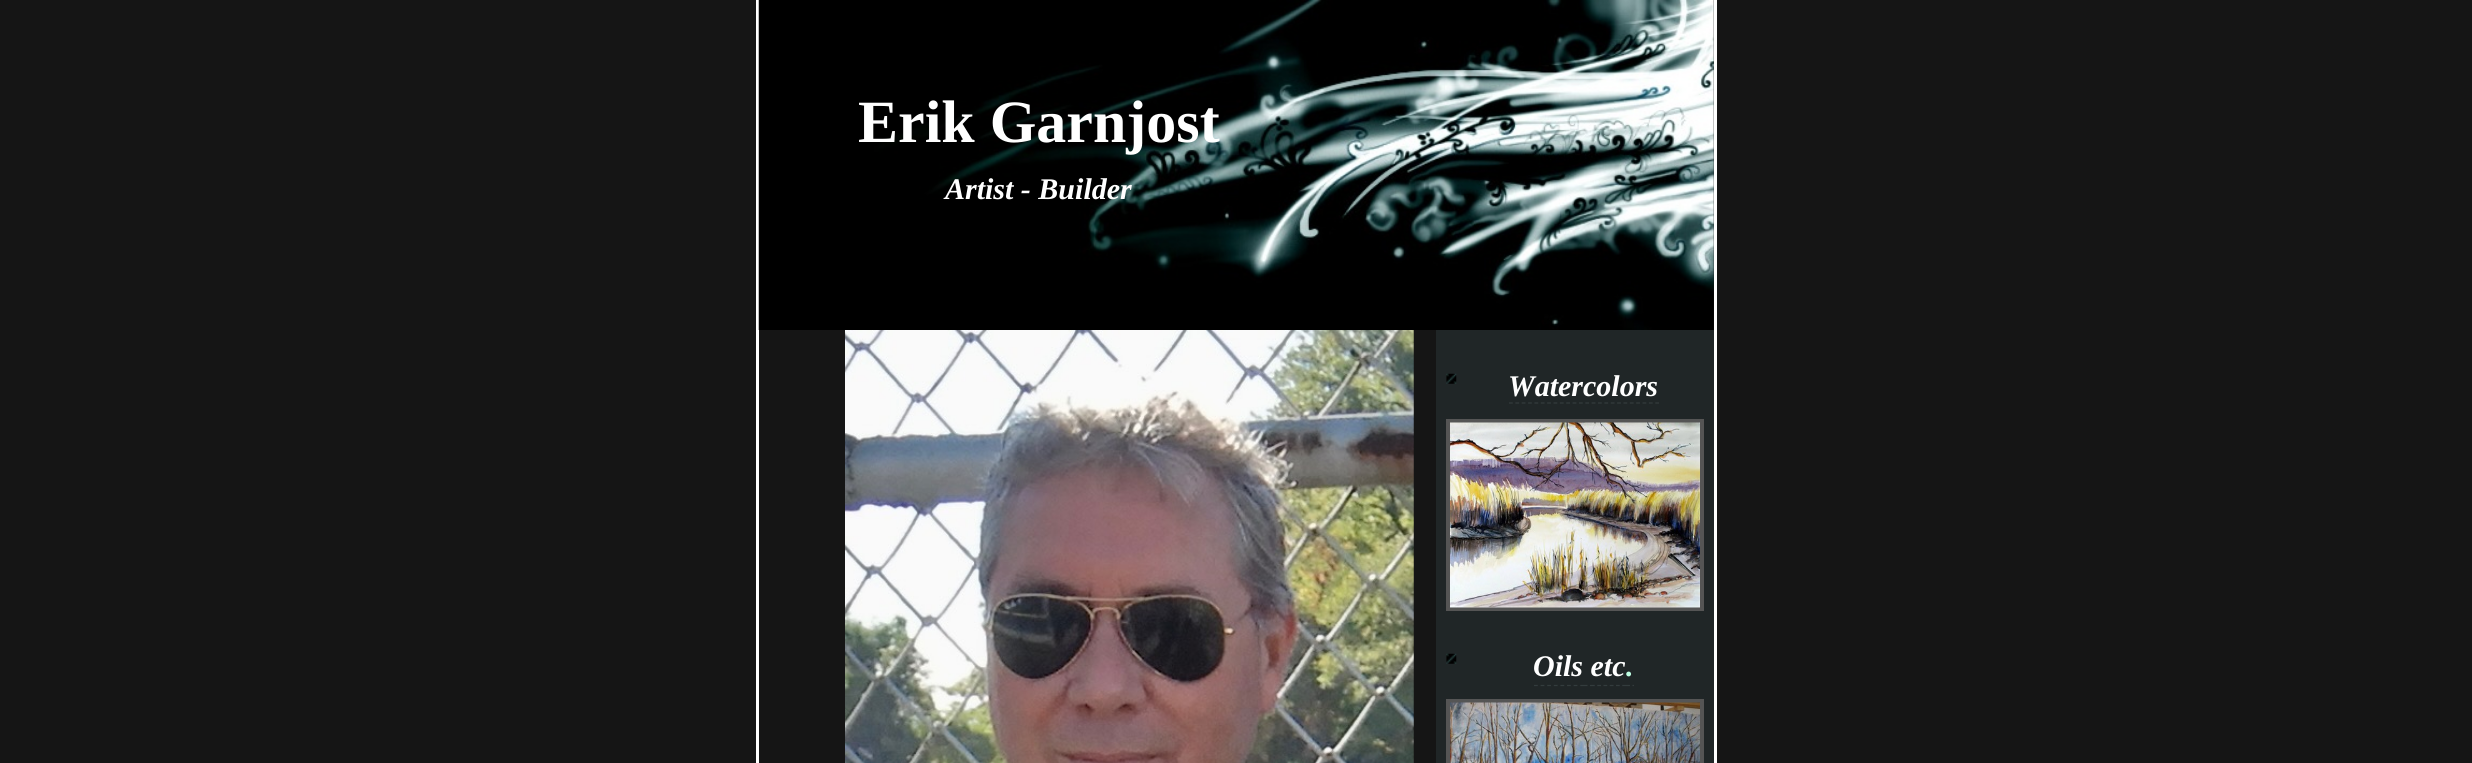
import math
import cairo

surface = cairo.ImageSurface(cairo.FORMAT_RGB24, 2472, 763)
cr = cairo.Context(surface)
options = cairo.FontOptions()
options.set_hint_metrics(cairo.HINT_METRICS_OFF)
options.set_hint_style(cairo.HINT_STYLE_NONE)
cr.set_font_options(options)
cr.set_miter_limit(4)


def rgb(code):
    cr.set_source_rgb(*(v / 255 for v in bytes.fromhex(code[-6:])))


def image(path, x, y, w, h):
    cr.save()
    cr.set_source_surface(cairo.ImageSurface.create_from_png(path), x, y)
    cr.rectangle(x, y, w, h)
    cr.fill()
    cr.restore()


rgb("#151515")
cr.paint()
rgb("#ffffff")
cr.rectangle(1714, 0, 3, 763)
cr.fill()
cr.rectangle(756, 0, 3, 763)
cr.fill()
image("img/1.png", 758, 0, 956, 330)
image("img/2.png", 845, 330, 569, 433)
rgb("#202627")
cr.rectangle(1436, 330, 278, 433)
cr.fill()
image("img/3.png", 1446, 373, 11, 11)
cr.new_path()
cr.move_to(1509, 403)
cr.line_to(1659, 403)
rgb("#333c3d")
cr.set_line_width(1.2)
cr.set_dash([3.75, 2.61])
cr.stroke()
rgb("#555555")
cr.rectangle(1446, 419, 258, 192)
cr.fill()
image("img/4.png", 1450, 422, 250, 186)
image("img/3.png", 1446, 653, 11, 11)
cr.new_path()
cr.move_to(1534, 685.5)
cr.line_to(1584, 685.5)
rgb("#333c3d")
cr.set_dash([3.75, 2.86])
cr.stroke()
cr.new_path()
cr.move_to(1584, 685.5)
cr.line_to(1587.5, 685.5)
cr.move_to(1590, 685.5)
cr.line_to(1591, 685.5)
cr.set_dash([])
cr.stroke()
cr.new_path()
cr.move_to(1591, 685.5)
cr.line_to(1626, 685.5)
cr.set_dash([3.75, 2.5])
cr.stroke()
cr.new_path()
cr.move_to(1626, 685.5)
cr.line_to(1630, 685.5)
cr.move_to(1632.5, 685.5)
cr.line_to(1634, 685.5)
cr.set_dash([])
cr.stroke()
rgb("#555555")
cr.rectangle(1446, 699, 258, 64)
cr.fill()
image("img/5.png", 1450, 702, 250, 61)
cr.select_font_face("Liberation Serif", cairo.FONT_SLANT_NORMAL, cairo.FONT_WEIGHT_BOLD)
cr.set_font_size(60)
rgb("#ffffff")
cr.move_to(858, 142)
cr.show_text("Erik Garnjost")
cr.select_font_face("Liberation Serif", cairo.FONT_SLANT_ITALIC, cairo.FONT_WEIGHT_BOLD)
cr.set_font_size(30)
for x, y, s in [
    (945, 199, "Artist - Builder"),
    (1508, 396, "Watercolors"),
    (1533, 676, "Oils etc"),
]:
    cr.move_to(x, y)
    cr.show_text(s)
rgb("#bfffe4")
cr.move_to(1626, 676)
cr.show_text(".")
surface.write_to_png("page.png")
